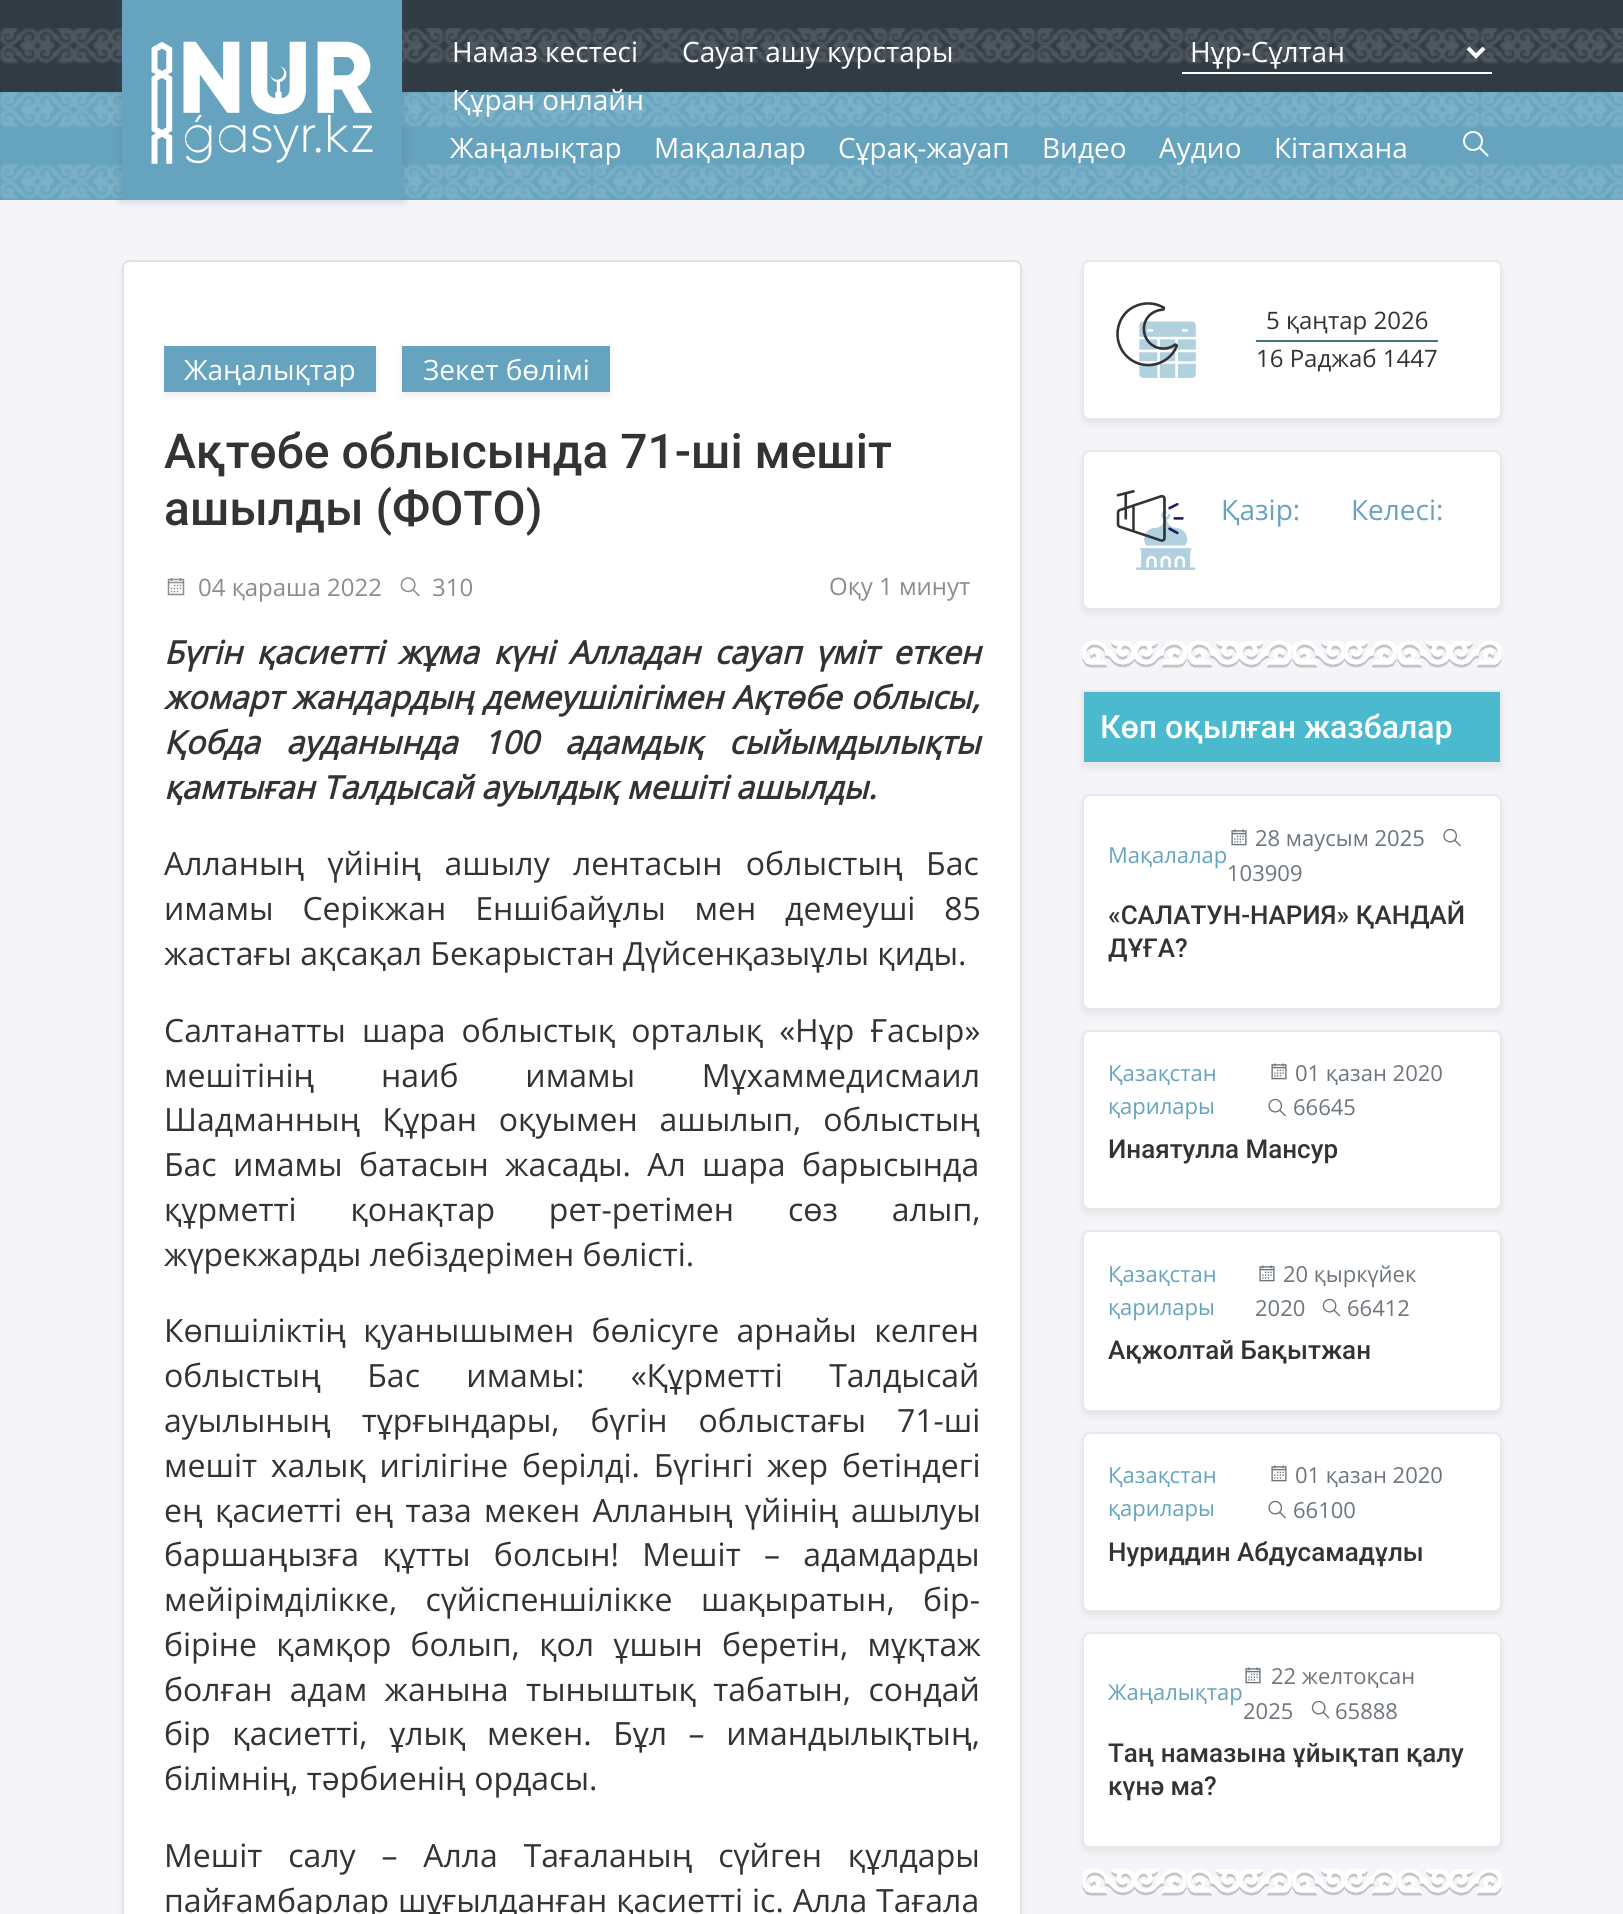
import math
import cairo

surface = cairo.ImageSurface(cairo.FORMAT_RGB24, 1623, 1914)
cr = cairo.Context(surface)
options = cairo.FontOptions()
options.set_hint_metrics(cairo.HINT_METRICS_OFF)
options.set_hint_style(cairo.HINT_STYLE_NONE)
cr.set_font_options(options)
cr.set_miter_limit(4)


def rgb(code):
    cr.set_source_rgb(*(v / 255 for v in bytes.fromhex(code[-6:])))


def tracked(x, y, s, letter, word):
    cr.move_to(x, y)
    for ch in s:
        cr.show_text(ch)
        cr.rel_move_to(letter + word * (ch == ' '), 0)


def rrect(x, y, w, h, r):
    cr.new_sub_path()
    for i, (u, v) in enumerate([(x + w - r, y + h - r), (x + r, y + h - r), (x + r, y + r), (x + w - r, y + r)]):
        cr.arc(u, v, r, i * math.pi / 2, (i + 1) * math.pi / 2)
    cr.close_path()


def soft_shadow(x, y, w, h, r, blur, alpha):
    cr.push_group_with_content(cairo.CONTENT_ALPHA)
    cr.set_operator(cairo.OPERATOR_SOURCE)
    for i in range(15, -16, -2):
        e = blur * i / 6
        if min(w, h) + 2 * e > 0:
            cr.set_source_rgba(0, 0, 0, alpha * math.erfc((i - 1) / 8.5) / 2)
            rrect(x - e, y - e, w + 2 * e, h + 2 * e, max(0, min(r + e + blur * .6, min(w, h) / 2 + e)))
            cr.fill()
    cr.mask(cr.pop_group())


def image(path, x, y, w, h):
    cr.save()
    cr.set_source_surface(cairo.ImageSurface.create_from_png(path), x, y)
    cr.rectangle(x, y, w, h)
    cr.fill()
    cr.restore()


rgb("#f5f5f9")
cr.paint()
rgb("#303b44")
cr.rectangle(0, 0, 1623, 92)
cr.fill()
image("img/1.png", 0, 28, 1623, 36)
rgb("#65a3be")
cr.rectangle(0, 92, 1623, 108)
cr.fill()
image("img/3.png", 0, 92, 1623, 108)
rgb("#3f4f73")
soft_shadow(120, -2, 284, 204, 0, 4, 0.2)
rgb("#65a3be")
cr.rectangle(122, 0, 280, 200)
cr.fill()
image("img/2.png", 151, 41, 222, 123)
rgb("#ffffff")
cr.rectangle(1182, 72, 310, 2)
cr.fill()
cr.new_path()
cr.move_to(1468, 48)
cr.line_to(1476, 56)
cr.line_to(1484, 48)
cr.set_line_width(4)
cr.stroke()
image("img/4.png", 1463, 131, 26, 26)
rgb("#000000")
soft_shadow(122, 264, 900, 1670, 8, 4, 0.07)
rgb("#ffffff")
rrect(122, 260, 900, 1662, 8)
cr.fill()
rrect(123, 261, 898, 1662, 7)
cr.set_source_rgba(0, 0, 0, 0.12)
cr.set_line_width(2)
cr.stroke()
rgb("#000000")
soft_shadow(164, 350, 212, 46, 0, 4, 0.07)
rgb("#65a3be")
cr.rectangle(164, 346, 212, 46)
cr.fill()
rgb("#000000")
soft_shadow(402, 350, 208, 46, 0, 4, 0.07)
rgb("#65a3be")
cr.rectangle(402, 346, 208, 46)
cr.fill()
image("img/5.png", 167, 578, 18, 18)
image("img/6.png", 400, 577, 20, 20)
rgb("#000000")
soft_shadow(1082, 264, 420, 160, 8, 4, 0.07)
rgb("#ffffff")
rrect(1083, 261, 418, 158, 7)
cr.fill_preserve()
rgb("#e8e8e8")
cr.stroke()
image("img/7.png", 1116, 302, 80, 76)
rgb("#487284")
cr.rectangle(1256, 340, 182, 2)
cr.fill()
rgb("#000000")
soft_shadow(1082, 454, 420, 160, 8, 4, 0.07)
rgb("#ffffff")
rrect(1083, 451, 418, 158, 7)
cr.fill_preserve()
rgb("#e8e8e8")
cr.stroke()
image("img/8.png", 1116, 490, 80, 80)
image("img/9.png", 1082, 640, 420, 28)
rgb("#000000")
soft_shadow(1082, 694, 420, 74, 0, 4, 0.07)
rgb("#4cbace")
cr.rectangle(1083, 691, 418, 72)
cr.fill_preserve()
rgb("#e8e8e8")
cr.stroke()
rgb("#000000")
soft_shadow(1082, 798, 420, 216, 8, 4, 0.07)
rgb("#ffffff")
rrect(1083, 795, 418, 214, 7)
cr.fill_preserve()
rgb("#e8e8e8")
cr.stroke()
image("img/10.png", 1231, 829, 16, 17)
image("img/11.png", 1443, 828, 18, 19)
rgb("#000000")
soft_shadow(1082, 1034, 420, 180, 8, 4, 0.07)
rgb("#ffffff")
rrect(1083, 1031, 418, 178, 7)
cr.fill_preserve()
rgb("#e8e8e8")
cr.stroke()
image("img/10.png", 1271, 1063, 16, 17)
image("img/12.png", 1268, 1098, 18, 19)
rgb("#000000")
soft_shadow(1082, 1234, 420, 182, 8, 4, 0.07)
rgb("#ffffff")
rrect(1083, 1231, 418, 180, 7)
cr.fill_preserve()
rgb("#e8e8e8")
cr.stroke()
image("img/10.png", 1259, 1265, 16, 17)
image("img/13.png", 1322, 1298, 19, 19)
rgb("#000000")
soft_shadow(1082, 1436, 420, 180, 8, 4, 0.07)
rgb("#ffffff")
rrect(1083, 1433, 418, 178, 7)
cr.fill_preserve()
rgb("#e8e8e8")
cr.stroke()
image("img/10.png", 1271, 1465, 16, 17)
image("img/12.png", 1268, 1500, 18, 19)
rgb("#000000")
soft_shadow(1082, 1636, 420, 216, 8, 4, 0.07)
rgb("#ffffff")
rrect(1083, 1633, 418, 214, 7)
cr.fill_preserve()
rgb("#e8e8e8")
cr.stroke()
image("img/10.png", 1245, 1667, 16, 17)
image("img/14.png", 1311, 1700, 19, 19)
image("img/9.png", 1082, 1868, 420, 28)
cr.select_font_face("Open Sans")
cr.set_font_size(28)
rgb("#ffffff")
for x, y, s in [
    (452, 62, "Намаз кестесі"),
    (682, 62, "Сауат ашу курстары"),
    (452, 110, "Құран онлайн"),
    (1190, 62, "Нұр-Сұлтан"),
    (450, 158, "Жаңалықтар"),
    (654, 158, "Мақалалар"),
    (838, 158, "Сұрақ-жауап"),
    (1042, 158, "Видео"),
    (1159, 158, "Аудио"),
    (1274, 158, "Кітапхана"),
    (184, 380, "Жаңалықтар"),
    (423, 380, "Зекет бөлімі"),
]:
    cr.move_to(x, y)
    cr.show_text(s)
cr.select_font_face("Roboto Medium")
cr.set_font_size(48)
rgb("#333333")
cr.move_to(164, 468)
cr.show_text("Ақтөбе облысында 71-ші мешіт")
cr.move_to(164, 525)
cr.show_text("ашылды (ФОТО)")
cr.select_font_face("Open Sans")
cr.set_font_size(24)
rgb("#8c8c8c")
for x, y, s in [
    (198, 596, "04 қараша 2022"),
    (432, 596, "310"),
    (829, 595, "Оқу 1 минут"),
]:
    cr.move_to(x, y)
    cr.show_text(s)
cr.select_font_face("Open Sans", cairo.FONT_SLANT_ITALIC, cairo.FONT_WEIGHT_BOLD)
cr.set_font_size(32)
rgb("#333333")
tracked(164, 664, "Бүгін қасиетті жұма күні Алладан сауап үміт еткен", 0, 6.25)
tracked(164, 709, "жомарт жандардың демеушілігімен Ақтөбе облысы,", 0, 1)
tracked(164, 754, "Қобда ауданында 100 адамдық сыйымдылықты", 0, 18)
cr.move_to(164, 799)
cr.show_text("қамтыған Талдысай ауылдық мешіті ашылды.")
cr.select_font_face("Open Sans")
tracked(164, 875, "Алланың үйінің ашылу лентасын облыстың Бас", 0, 15)
tracked(164, 920, "имамы Серікжан Еншібайұлы мен демеуші 85", 0, 20.5)
cr.move_to(164, 965)
cr.show_text("жастағы ақсақал Бекарыстан Дүйсенқазыұлы қиды.")
tracked(164, 1042, "Салтанатты шара облыстық орталық «Нұр Ғасыр»", 0, 7.75)
tracked(164, 1087, "мешітінің наиб имамы Мұхаммедисмаил", 0, 58.5)
tracked(164, 1131, "Шадманның Құран оқуымен ашылып, облыстың", 0, 13.5)
tracked(164, 1176, "Бас имамы батасын жасады. Ал шара барысында", 0, 8)
tracked(164, 1221, "құрметті қонақтар рет-ретімен сөз алып,", 0, 45.5)
cr.move_to(164, 1266)
cr.show_text("жүрекжарды лебіздерімен бөлісті.")
tracked(164, 1342, "Көпшіліктің қуанышымен бөлісуге арнайы келген", 0, 9)
tracked(164, 1387, "облыстың Бас имамы: «Құрметті Талдысай", 0, 38)
tracked(164, 1432, "ауылының тұрғындары, бүгін облыстағы 71-ші", 0, 22.5)
tracked(164, 1477, "мешіт халық игілігіне берілді. Бүгінгі жер бетіндегі", 0, 5.5)
tracked(164, 1522, "ең қасиетті ең таза мекен Алланың үйінің ашылуы", 0, 4)
tracked(164, 1566, "баршаңызға құтты болсын! Мешіт – адамдарды", 0, 15)
tracked(164, 1611, "мейірімділікке, сүйіспеншілікке шақыратын, бір-", 0, 20)
tracked(164, 1656, "біріне қамқор болып, қол ұшын беретін, мұқтаж", 0, 11)
tracked(164, 1701, "болған адам жанына тыныштық табатын, сондай", 0, 9)
tracked(164, 1745, "бір қасиетті, ұлық мекен. Бұл – имандылықтың,", 0, 13.25)
cr.move_to(164, 1790)
cr.show_text("білімнің, тәрбиенің ордасы.")
tracked(164, 1867, "Мешіт салу – Алла Тағаланың сүйген құлдары", 0, 17.5)
tracked(164, 1912, "пайғамбарлар шұғылданған қасиетті іс. Алла Тағала", 0, 0.5)
cr.set_font_size(24)
cr.move_to(1266, 329)
cr.show_text("5 қаңтар 2026")
cr.move_to(1256, 367)
cr.show_text("16 Раджаб 1447")
cr.set_font_size(28)
rgb("#65a3be")
cr.move_to(1221, 520)
cr.show_text("Қазір:")
cr.move_to(1351, 520)
cr.show_text("Келесі:")
cr.select_font_face("Roboto Medium")
cr.set_font_size(32)
rgb("#ffffff")
cr.move_to(1100, 738)
cr.show_text("Көп оқылған жазбалар")
cr.select_font_face("Open Sans")
cr.set_font_size(22)
rgb("#65a3be")
cr.move_to(1108, 863)
cr.show_text("Мақалалар")
rgb("#6c757d")
cr.move_to(1255, 846)
cr.show_text("28 маусым 2025")
cr.move_to(1227, 881)
cr.show_text("103909")
cr.select_font_face("Roboto Medium")
cr.set_font_size(26)
rgb("#333333")
cr.move_to(1108, 924)
cr.show_text("«САЛАТУН-НАРИЯ» ҚАНДАЙ")
cr.move_to(1108, 957)
cr.show_text("ДҰҒА?")
cr.select_font_face("Open Sans")
cr.set_font_size(22)
rgb("#65a3be")
cr.move_to(1108, 1081)
cr.show_text("Қазақстан")
cr.move_to(1108, 1114)
cr.show_text("қарилары")
rgb("#6c757d")
cr.move_to(1295, 1081)
cr.show_text("01 қазан 2020")
cr.move_to(1293, 1115)
cr.show_text("66645")
cr.select_font_face("Roboto Medium")
cr.set_font_size(26)
rgb("#333333")
cr.move_to(1108, 1158)
cr.show_text("Инаятулла Мансур")
cr.select_font_face("Open Sans")
cr.set_font_size(22)
rgb("#65a3be")
cr.move_to(1108, 1282)
cr.show_text("Қазақстан")
cr.move_to(1108, 1315)
cr.show_text("қарилары")
rgb("#6c757d")
for x, y, s in [
    (1283, 1282, "20 қыркүйек"),
    (1255, 1316, "2020"),
    (1347, 1316, "66412"),
]:
    cr.move_to(x, y)
    cr.show_text(s)
cr.select_font_face("Roboto Medium")
cr.set_font_size(26)
rgb("#333333")
cr.move_to(1108, 1359)
cr.show_text("Ақжолтай Бақытжан")
cr.select_font_face("Open Sans")
cr.set_font_size(22)
rgb("#65a3be")
cr.move_to(1108, 1483)
cr.show_text("Қазақстан")
cr.move_to(1108, 1516)
cr.show_text("қарилары")
rgb("#6c757d")
cr.move_to(1295, 1483)
cr.show_text("01 қазан 2020")
cr.move_to(1293, 1518)
cr.show_text("66100")
cr.select_font_face("Roboto Medium")
cr.set_font_size(26)
rgb("#333333")
cr.move_to(1108, 1561)
cr.show_text("Нуриддин Абдусамадұлы")
cr.select_font_face("Open Sans")
cr.set_font_size(22)
rgb("#65a3be")
cr.move_to(1108, 1700)
cr.show_text("Жаңалықтар")
rgb("#6c757d")
for x, y, s in [
    (1271, 1684, "22 желтоқсан"),
    (1243, 1719, "2025"),
    (1335, 1719, "65888"),
]:
    cr.move_to(x, y)
    cr.show_text(s)
cr.select_font_face("Roboto Medium")
cr.set_font_size(26)
rgb("#333333")
cr.move_to(1108, 1762)
cr.show_text("Таң намазына ұйықтап қалу")
cr.move_to(1108, 1795)
cr.show_text("күнә ма?")
surface.write_to_png("page.png")
